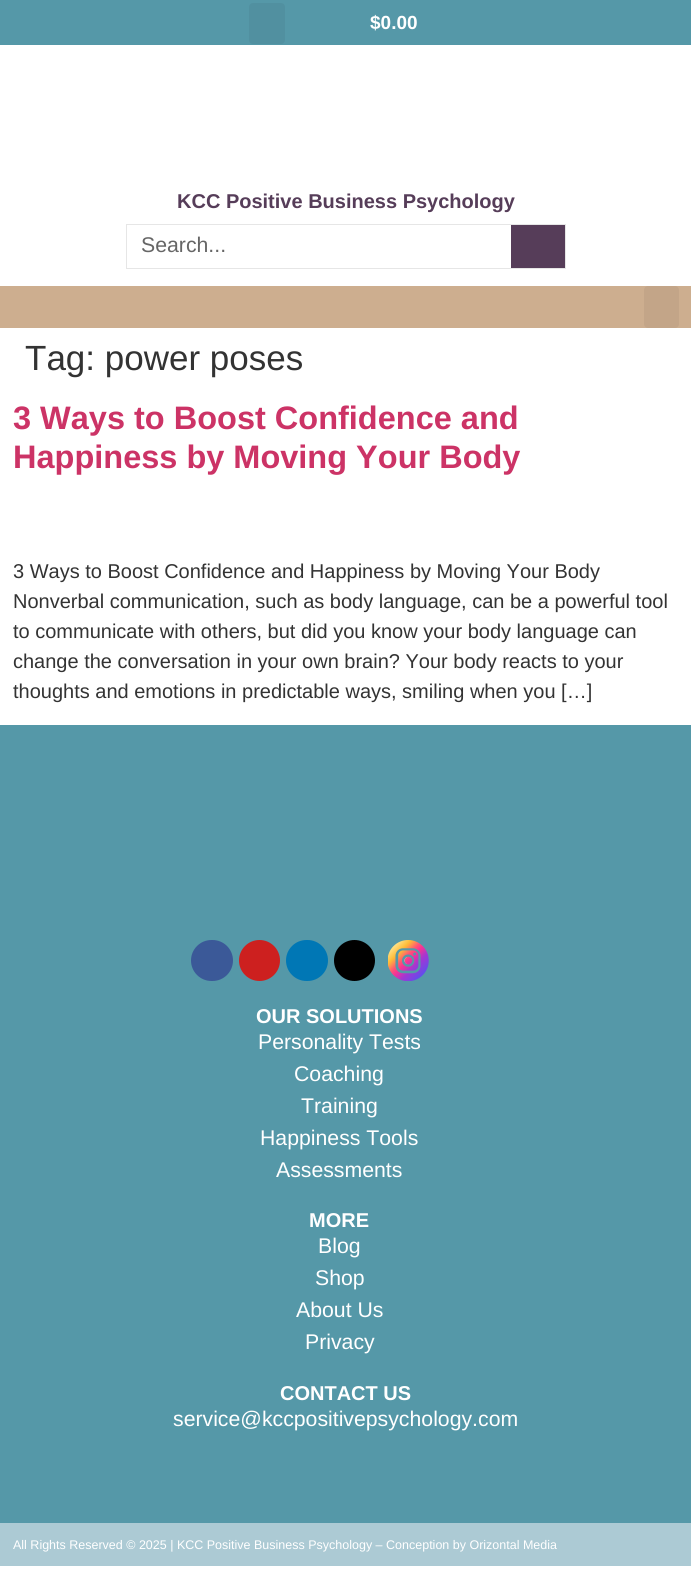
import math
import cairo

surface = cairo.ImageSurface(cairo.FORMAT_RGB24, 691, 1596)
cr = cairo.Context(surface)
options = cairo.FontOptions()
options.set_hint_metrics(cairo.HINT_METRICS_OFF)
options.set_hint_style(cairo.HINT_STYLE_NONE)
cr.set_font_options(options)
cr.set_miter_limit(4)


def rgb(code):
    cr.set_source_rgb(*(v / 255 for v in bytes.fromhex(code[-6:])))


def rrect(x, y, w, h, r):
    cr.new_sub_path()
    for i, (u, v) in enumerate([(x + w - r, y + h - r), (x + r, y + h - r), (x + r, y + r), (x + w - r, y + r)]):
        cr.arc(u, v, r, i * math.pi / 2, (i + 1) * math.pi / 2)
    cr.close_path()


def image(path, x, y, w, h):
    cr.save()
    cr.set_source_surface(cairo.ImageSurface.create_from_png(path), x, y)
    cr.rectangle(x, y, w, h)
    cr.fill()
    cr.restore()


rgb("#ffffff")
cr.paint()
rgb("#5598a8")
cr.rectangle(0, 0, 691, 45)
cr.fill()
rgb("#5190a0")
rrect(249, 3, 36, 41, 4)
cr.fill()
cr.rectangle(126.5, 224.5, 439, 44)
rgb("#e6e6e6")
cr.set_line_width(1)
cr.stroke()
rgb("#563d59")
cr.rectangle(511, 225, 54, 43)
cr.fill()
rgb("#cdae8f")
cr.rectangle(0, 286, 691, 42)
cr.fill()
rgb("#c3a588")
rrect(644, 286, 35, 42, 4)
cr.fill()
rgb("#5598a8")
cr.rectangle(0, 725, 691, 798)
cr.fill()
rgb("#3b5998")
rrect(191, 940, 42, 41, 20.5)
cr.fill()
rgb("#cd201f")
cr.arc(259.5, 960.5, 20.5, 0, 2 * math.pi)
cr.fill()
rgb("#0077b5")
rrect(286, 940, 42, 41, 20.5)
cr.fill()
rgb("#000000")
cr.arc(354.5, 960.5, 20.5, 0, 2 * math.pi)
cr.fill()
image("img/1.png", 388, 940, 41, 41)
rgb("#accad4")
cr.rectangle(0, 1523, 691, 43)
cr.fill()
cr.select_font_face("Liberation Sans", cairo.FONT_SLANT_NORMAL, cairo.FONT_WEIGHT_BOLD)
cr.set_font_size(19)
rgb("#ffffff")
cr.move_to(370, 29)
cr.show_text("$0.00")
cr.set_font_size(20)
rgb("#563d59")
cr.move_to(177, 208)
cr.show_text("KCC Positive Business Psychology")
cr.select_font_face("Liberation Sans")
cr.set_font_size(21.25)
rgb("#666666")
cr.move_to(141, 252)
cr.show_text("Search...")
cr.set_font_size(35)
rgb("#333333")
cr.move_to(25, 370)
cr.show_text("Tag: power poses")
cr.select_font_face("Liberation Sans", cairo.FONT_SLANT_NORMAL, cairo.FONT_WEIGHT_BOLD)
cr.set_font_size(32.5)
rgb("#cc3366")
cr.move_to(13, 429)
cr.show_text("3 Ways to Boost Confidence and")
cr.move_to(13, 468)
cr.show_text("Happiness by Moving Your Body")
cr.select_font_face("Liberation Sans")
cr.set_font_size(20)
rgb("#333333")
for x, y, s in [
    (13, 578, "3 Ways to Boost Confidence and Happiness by Moving Your Body"),
    (13, 608, "Nonverbal communication, such as body language, can be a powerful tool"),
    (13, 638, "to communicate with others, but did you know your body language can"),
    (13, 668, "change the conversation in your own brain? Your body reacts to your"),
    (13, 698, "thoughts and emotions in predictable ways, smiling when you […]"),
]:
    cr.move_to(x, y)
    cr.show_text(s)
cr.select_font_face("Liberation Sans", cairo.FONT_SLANT_NORMAL, cairo.FONT_WEIGHT_BOLD)
rgb("#ffffff")
cr.move_to(256, 1023)
cr.show_text("OUR SOLUTIONS")
cr.select_font_face("Liberation Sans")
cr.set_font_size(21.25)
for x, y, s in [
    (258, 1049, "Personality Tests"),
    (294, 1081, "Coaching"),
    (301, 1113, "Training"),
    (260, 1145, "Happiness Tools"),
    (276, 1177, "Assessments"),
]:
    cr.move_to(x, y)
    cr.show_text(s)
cr.select_font_face("Liberation Sans", cairo.FONT_SLANT_NORMAL, cairo.FONT_WEIGHT_BOLD)
cr.set_font_size(20)
cr.move_to(309, 1227)
cr.show_text("MORE")
cr.select_font_face("Liberation Sans")
cr.set_font_size(21.25)
for x, y, s in [
    (318, 1253, "Blog"),
    (315, 1285, "Shop"),
    (296, 1317, "About Us"),
    (305, 1349, "Privacy"),
]:
    cr.move_to(x, y)
    cr.show_text(s)
cr.select_font_face("Liberation Sans", cairo.FONT_SLANT_NORMAL, cairo.FONT_WEIGHT_BOLD)
cr.set_font_size(20)
cr.move_to(280, 1400)
cr.show_text("CONTACT US")
cr.select_font_face("Liberation Sans")
cr.set_font_size(21.25)
cr.move_to(173, 1426)
cr.show_text("service@kccpositivepsychology.com")
cr.set_font_size(12.5)
cr.move_to(13, 1549)
cr.show_text("All Rights Reserved © 2025 | KCC Positive Business Psychology – Conception by Orizontal Media")
surface.write_to_png("page.png")
